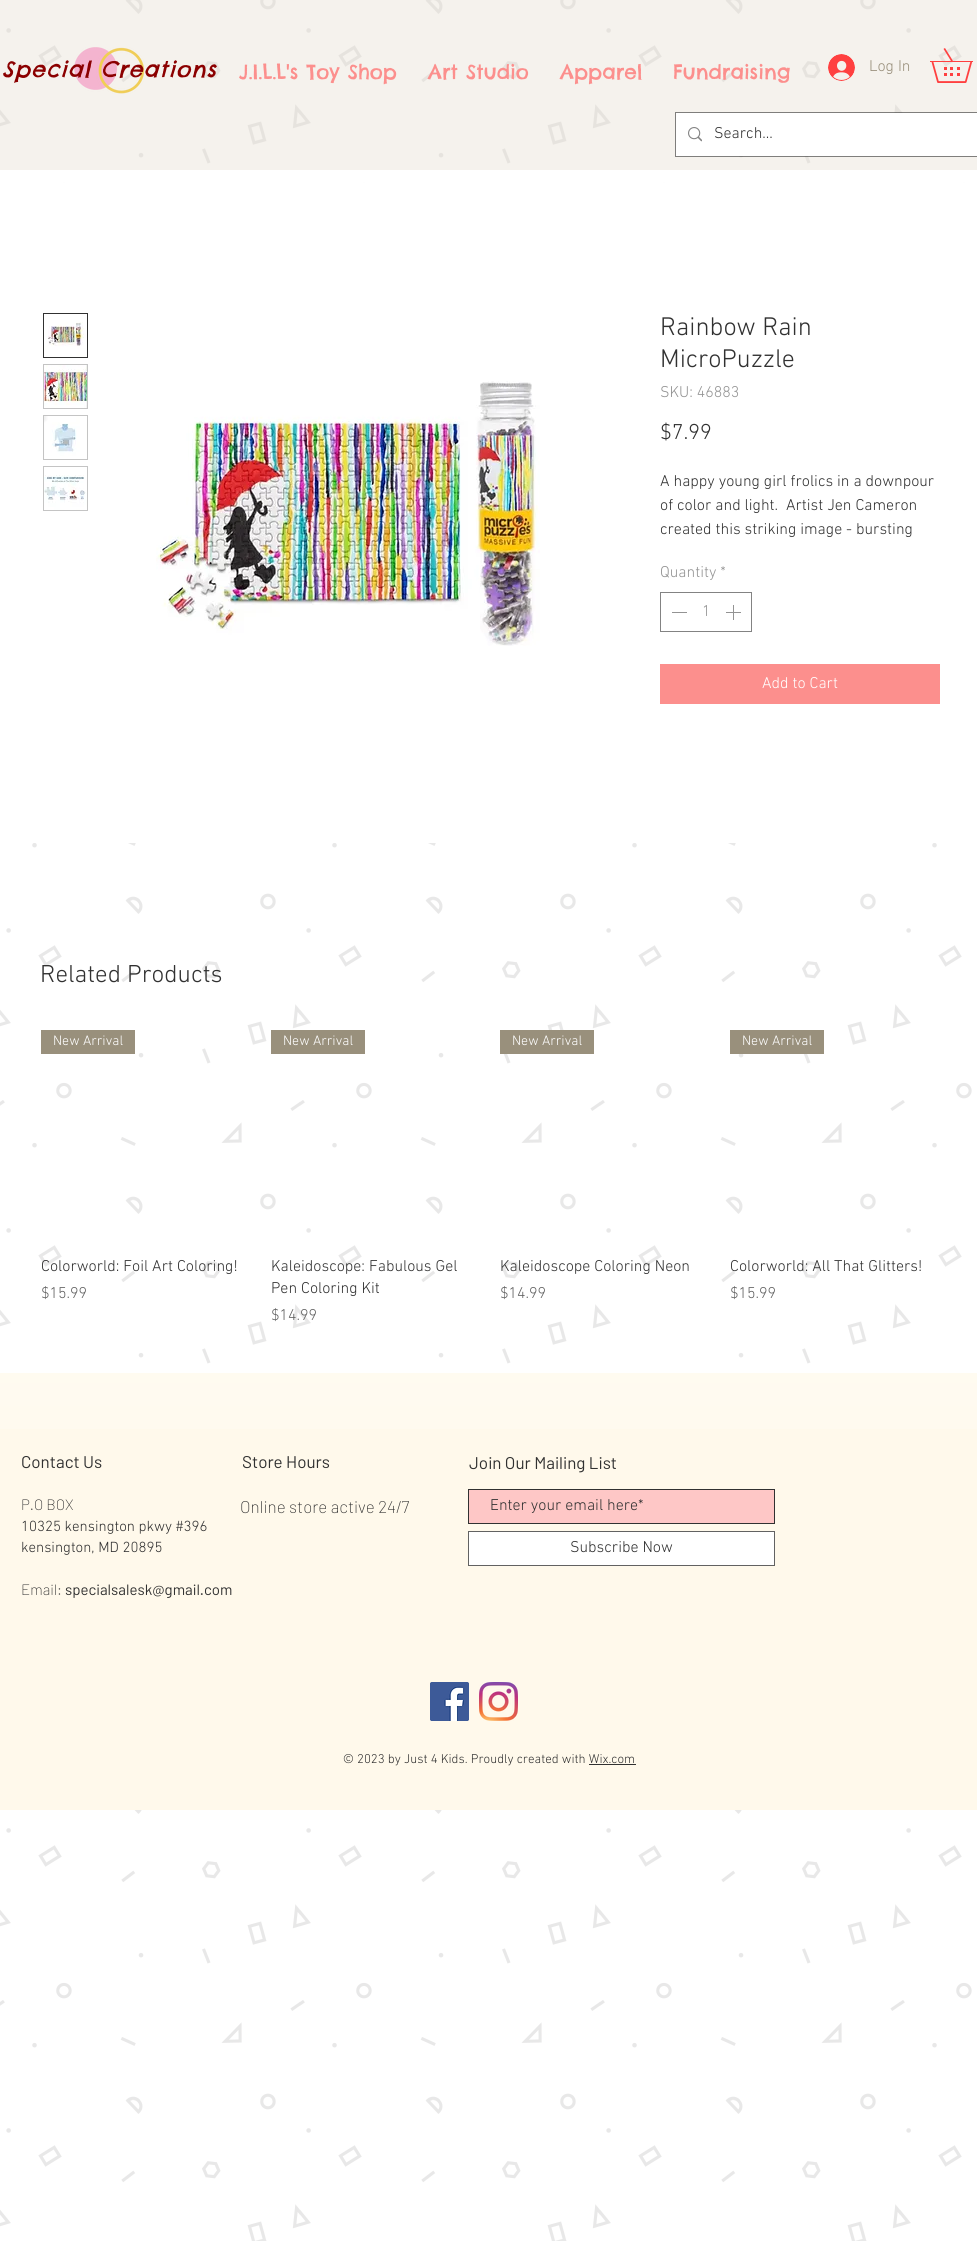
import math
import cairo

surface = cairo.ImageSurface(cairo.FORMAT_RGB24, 977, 2241)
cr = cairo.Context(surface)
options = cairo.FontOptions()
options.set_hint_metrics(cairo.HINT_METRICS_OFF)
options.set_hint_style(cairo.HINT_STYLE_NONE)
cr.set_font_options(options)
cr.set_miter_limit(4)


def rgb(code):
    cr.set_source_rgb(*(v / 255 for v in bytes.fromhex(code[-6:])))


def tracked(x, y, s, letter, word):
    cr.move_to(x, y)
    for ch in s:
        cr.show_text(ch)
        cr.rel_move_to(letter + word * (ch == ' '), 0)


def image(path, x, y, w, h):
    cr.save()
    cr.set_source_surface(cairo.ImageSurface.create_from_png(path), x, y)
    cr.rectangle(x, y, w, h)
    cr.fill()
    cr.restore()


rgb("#ffffff")
cr.paint()
image("img/1.png", 0, 0, 972, 2241)
cr.set_source_rgba(0.894, 0.867, 0.804, 0.36)
cr.rectangle(0, 0, 977, 170)
cr.fill()
image("img/2.png", 74, 47, 71, 47)
image("img/3.png", 828, 54, 27, 27)
image("img/4.png", 930, 48, 43, 35)
cr.rectangle(675.5, 112.5, 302, 44)
cr.set_source_rgba(0.192, 0.192, 0.192, 0.6)
cr.set_line_width(1)
cr.stroke()
rgb("#ffffff")
cr.rectangle(676, 113, 301, 43)
cr.fill()
image("img/5.png", 688, 127, 14, 15)
cr.rectangle(0, 183, 972, 660)
cr.fill()
cr.rectangle(43.5, 313.5, 44, 44)
rgb("#313131")
cr.stroke()
image("img/6.png", 44, 314, 43, 43)
rgb("#c4c4c4")
cr.rectangle(43, 364, 45, 45)
cr.fill()
image("img/7.png", 44, 365, 43, 43)
cr.rectangle(43, 415, 45, 45)
cr.fill()
image("img/8.png", 44, 416, 43, 43)
cr.rectangle(43, 466, 45, 45)
cr.fill()
image("img/9.png", 44, 467, 43, 43)
image("img/10.png", 156, 381, 384, 265)
cr.rectangle(660.5, 592.5, 91, 39)
rgb("#838383")
cr.stroke()
rgb("#939393")
cr.rectangle(672, 612, 15, 1)
cr.fill()
image("img/11.png", 726, 605, 15, 15)
for x, y, w, h, color in [
    (660, 664, 280, 40, "#fc8f8d"),
    (41, 1030, 94, 24, "#99907c"),
    (271, 1030, 94, 24, "#99907c"),
    (500, 1030, 94, 24, "#99907c"),
    (730, 1030, 94, 24, "#99907c"),
    (0, 1373, 977, 437, "#fff9eb"),
]:
    rgb(color)
    cr.rectangle(x, y, w, h)
    cr.fill()
image("img/12.png", 0, 1373, 977, 56)
rgb("#fec7c6")
cr.rectangle(468.5, 1489.5, 306, 34)
cr.fill_preserve()
rgb("#313131")
cr.stroke()
rgb("#ffffff")
cr.rectangle(468.5, 1531.5, 306, 34)
cr.fill_preserve()
rgb("#626262")
cr.stroke()
image("img/13.png", 430, 1682, 39, 39)
image("img/14.png", 479, 1682, 39, 39)
rgb("#313131")
cr.rectangle(589, 1764, 47, 1)
cr.fill()
cr.select_font_face("Chelsea Market", cairo.FONT_SLANT_ITALIC)
cr.set_font_size(22)
rgb("#8b0000")
tracked(2, 77, "Special Creations", 1.1, 0)
cr.select_font_face("Chelsea Market")
cr.set_font_size(20)
rgb("#fc8f8d")
for x, y, s in [
    (239, 79, "J.I.L.L's Toy Shop"),
    (428, 79, "Art Studio"),
    (560, 79, "Apparel"),
    (673, 79, "Fundraising"),
]:
    cr.move_to(x, y)
    cr.show_text(s)
cr.select_font_face("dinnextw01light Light")
cr.set_font_size(16)
rgb("#99907c")
cr.move_to(869, 71)
cr.show_text("Log In")
rgb("#313131")
cr.move_to(714, 138)
cr.show_text("Search...")
cr.set_font_size(26)
cr.move_to(660, 335)
cr.show_text("Rainbow Rain")
cr.move_to(660, 367)
cr.show_text("MicroPuzzle")
cr.set_font_size(16)
rgb("#939393")
cr.move_to(660, 397)
cr.show_text("SKU: 46883")
cr.set_font_size(22)
rgb("#313131")
cr.move_to(660, 439)
cr.show_text("$7.99")
cr.set_font_size(16)
for x, y, s in [
    (660, 486, "A happy young girl frolics in a downpour"),
    (660, 510, "of color and light.  Artist Jen Cameron"),
    (660, 534, "created this striking image - bursting"),
]:
    cr.move_to(x, y)
    cr.show_text(s)
rgb("#939393")
cr.move_to(660, 577)
cr.show_text("Quantity *")
cr.move_to(702, 616)
cr.show_text("1")
rgb("#ffffff")
cr.move_to(762, 688)
cr.show_text("Add to Cart")
cr.set_font_size(25)
rgb("#313131")
cr.move_to(40, 982)
cr.show_text("Related Products")
cr.set_font_size(14)
rgb("#ffffff")
cr.move_to(53, 1045)
cr.show_text("New Arrival")
cr.set_font_size(16)
rgb("#313131")
cr.move_to(41, 1271)
cr.show_text("Colorworld: Foil Art Coloring!")
rgb("#626262")
cr.move_to(41, 1298)
cr.show_text("$15.99")
cr.set_font_size(14)
rgb("#ffffff")
cr.move_to(283, 1045)
cr.show_text("New Arrival")
cr.set_font_size(16)
rgb("#313131")
cr.move_to(271, 1271)
cr.show_text("Kaleidoscope: Fabulous Gel")
cr.move_to(271, 1293)
cr.show_text("Pen Coloring Kit")
rgb("#626262")
cr.move_to(271, 1320)
cr.show_text("$14.99")
cr.set_font_size(14)
rgb("#ffffff")
cr.move_to(512, 1045)
cr.show_text("New Arrival")
cr.set_font_size(16)
rgb("#313131")
cr.move_to(500, 1271)
cr.show_text("Kaleidoscope Coloring Neon")
rgb("#626262")
cr.move_to(500, 1298)
cr.show_text("$14.99")
cr.set_font_size(14)
rgb("#ffffff")
cr.move_to(742, 1045)
cr.show_text("New Arrival")
cr.set_font_size(16)
rgb("#313131")
cr.move_to(730, 1271)
cr.show_text("Colorworld: All That Glitters!")
rgb("#626262")
cr.move_to(730, 1298)
cr.show_text("$15.99")
cr.select_font_face("Barlow")
cr.set_font_size(17)
rgb("#313131")
for x, y, s in [
    (21, 1468, "Contact Us"),
    (242, 1468, "Store Hours"),
    (469, 1469, "Join Our Mailing List"),
]:
    cr.move_to(x, y)
    cr.show_text(s)
cr.select_font_face("dinnextw01light Light")
cr.set_font_size(16)
cr.move_to(490, 1510)
cr.show_text("Enter your email here*")
cr.move_to(570, 1552)
cr.show_text("Subscribe Now")
cr.select_font_face("Barlow ExtraLight")
cr.set_font_size(15)
cr.move_to(21, 1510)
cr.show_text("P.O BOX")
cr.select_font_face("dinnextw01light Light")
cr.move_to(21, 1531)
cr.show_text("10325 kensington pkwy #396")
cr.move_to(21, 1552)
cr.show_text("kensington, MD 20895")
cr.select_font_face("Barlow ExtraLight")
cr.move_to(21, 1595)
cr.show_text("Email:")
cr.select_font_face("Barlow")
cr.move_to(65, 1595)
cr.show_text("specialsalesk@gmail.com")
cr.select_font_face("Barlow ExtraLight")
cr.set_font_size(17)
cr.move_to(240, 1513)
cr.show_text("Online store active 24/7")
cr.select_font_face("dinnextw01light Light")
cr.set_font_size(13)
cr.move_to(343, 1763)
cr.show_text("© 2023 by Just 4 Kids. Proudly created with Wix.com")
surface.write_to_png("page.png")
